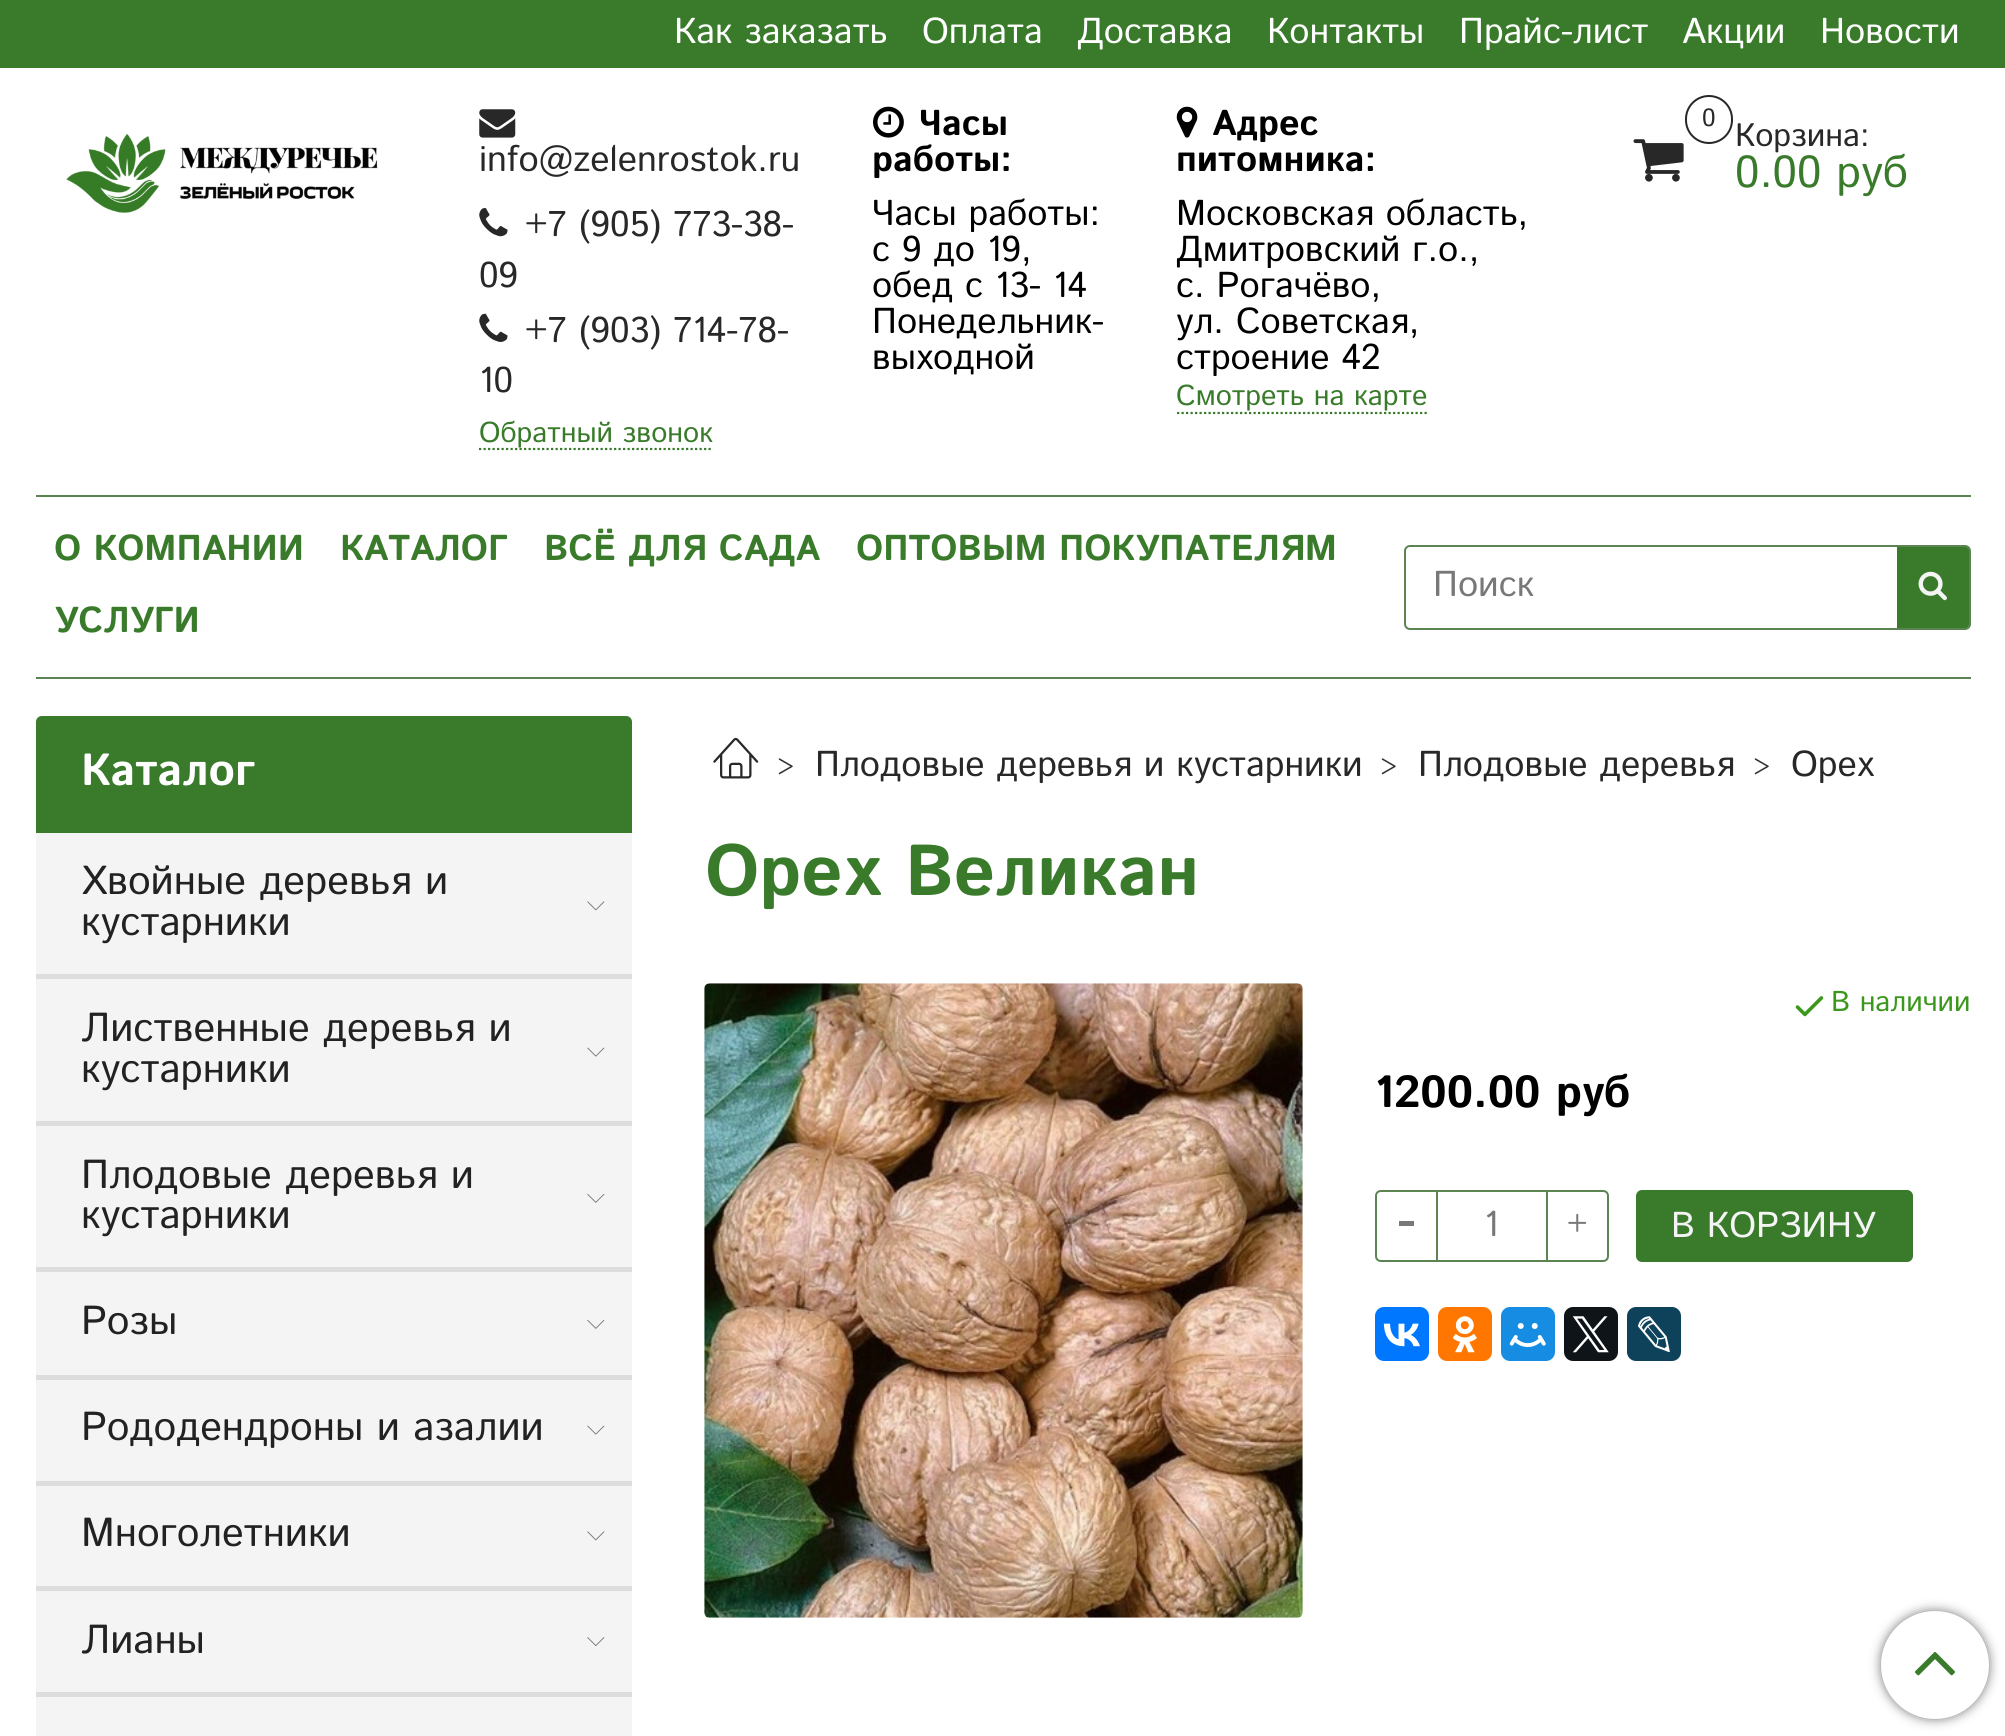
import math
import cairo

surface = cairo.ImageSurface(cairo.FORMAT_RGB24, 2005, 1736)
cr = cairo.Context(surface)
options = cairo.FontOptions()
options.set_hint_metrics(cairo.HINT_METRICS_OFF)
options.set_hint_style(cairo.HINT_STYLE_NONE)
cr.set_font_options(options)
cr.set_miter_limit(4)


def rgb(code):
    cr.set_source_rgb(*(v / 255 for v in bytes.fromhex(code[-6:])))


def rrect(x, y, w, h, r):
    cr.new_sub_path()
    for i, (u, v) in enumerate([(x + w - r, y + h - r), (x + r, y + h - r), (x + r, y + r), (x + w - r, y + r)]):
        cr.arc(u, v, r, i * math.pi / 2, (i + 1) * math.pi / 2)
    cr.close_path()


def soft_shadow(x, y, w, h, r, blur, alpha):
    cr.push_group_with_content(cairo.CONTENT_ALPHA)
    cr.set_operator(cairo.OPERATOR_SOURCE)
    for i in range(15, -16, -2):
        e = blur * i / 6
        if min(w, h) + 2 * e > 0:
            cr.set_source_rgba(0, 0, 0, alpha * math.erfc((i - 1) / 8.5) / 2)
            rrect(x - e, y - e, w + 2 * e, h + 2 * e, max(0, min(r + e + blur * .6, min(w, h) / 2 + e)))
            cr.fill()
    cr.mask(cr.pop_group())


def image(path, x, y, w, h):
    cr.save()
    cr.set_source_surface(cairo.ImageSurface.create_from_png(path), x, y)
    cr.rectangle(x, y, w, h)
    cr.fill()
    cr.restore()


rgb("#ffffff")
cr.paint()
rgb("#397b2b")
cr.rectangle(0, 0, 2005, 68)
cr.fill()
image("img/1.png", 66, 133, 312, 80)
image("img/2.png", 479, 109, 37, 29)
image("img/3.png", 479, 208, 29, 29)
image("img/4.png", 479, 313, 29, 29)
cr.new_path()
cr.move_to(479, 449)
cr.line_to(713, 449)
cr.set_line_width(2.2)
cr.set_dash([2.25, 2.25])
cr.stroke()
image("img/5.png", 873, 106, 31, 32)
image("img/6.png", 1176, 106, 22, 32)
cr.new_path()
cr.move_to(1177, 413)
cr.line_to(1429, 413)
cr.stroke()
rrect(1686, 96, 46, 47, 23)
rgb("#282828")
cr.set_line_width(2)
cr.set_dash([])
cr.stroke()
image("img/7.png", 1633, 139, 51, 43)
rgb("#5b8452")
cr.rectangle(36, 495, 1935, 2)
cr.fill()
cr.rectangle(36, 677, 1935, 2)
cr.fill()
rrect(1405, 546, 565, 83, 5)
cr.stroke()
rgb("#397b2b")
cr.new_path()
cr.move_to(1897, 547)
cr.line_to(1966, 547)
cr.curve_to(1967.5, 547, 1969, 548.5, 1969, 550)
cr.line_to(1969, 625)
cr.curve_to(1969, 626.5, 1967.5, 628, 1966, 628)
cr.line_to(1897, 628)
cr.close_path()
cr.fill()
image("img/8.png", 1918, 571, 29, 30)
cr.new_path()
cr.move_to(42, 716)
cr.line_to(626, 716)
cr.curve_to(629.5, 716, 632, 718.5, 632, 722)
cr.line_to(632, 833)
cr.line_to(36, 833)
cr.line_to(36, 722)
cr.curve_to(36, 718.5, 38.5, 716, 42, 716)
cr.close_path()
cr.fill()
rgb("#f4f4f4")
cr.rectangle(36, 833, 596, 903)
cr.fill()
rgb("#dddddd")
cr.rectangle(36, 974, 596, 5)
cr.fill()
image("img/9.png", 587, 901, 18, 10)
cr.rectangle(36, 1121, 596, 5)
cr.fill()
image("img/10.png", 587, 1047, 18, 10)
cr.rectangle(36, 1267, 596, 5)
cr.fill()
image("img/11.png", 587, 1193, 18, 10)
cr.rectangle(36, 1375, 596, 5)
cr.fill()
image("img/11.png", 587, 1319, 18, 10)
cr.rectangle(36, 1481, 596, 5)
cr.fill()
image("img/10.png", 587, 1425, 18, 10)
cr.rectangle(36, 1586, 596, 5)
cr.fill()
image("img/9.png", 587, 1531, 18, 10)
cr.rectangle(36, 1692, 596, 5)
cr.fill()
image("img/12.png", 587, 1637, 18, 9)
image("img/13.png", 713, 737, 46, 42)
image("img/14.png", 704, 983, 599, 635)
image("img/15.png", 1795, 996, 29, 21)
cr.new_path()
cr.move_to(1381, 1191)
cr.line_to(1437, 1191)
cr.line_to(1437, 1261)
cr.line_to(1381, 1261)
cr.curve_to(1378, 1261, 1376, 1259, 1376, 1256)
cr.line_to(1376, 1196)
cr.curve_to(1376, 1193, 1378, 1191, 1381, 1191)
cr.close_path()
rgb("#5b8452")
cr.stroke()
for x, y, w, h, color in [
    (1399, 1221, 15, 5, "#787878"),
    (1438, 1190, 108, 2, "#5b8452"),
    (1438, 1260, 108, 2, "#5b8452"),
]:
    rgb(color)
    cr.rectangle(x, y, w, h)
    cr.fill()
cr.new_path()
cr.move_to(1547, 1191)
cr.line_to(1603, 1191)
cr.curve_to(1606, 1191, 1608, 1193, 1608, 1196)
cr.line_to(1608, 1256)
cr.curve_to(1608, 1259, 1606, 1261, 1603, 1261)
cr.line_to(1547, 1261)
cr.close_path()
cr.stroke()
image("img/16.png", 1568, 1213, 19, 19)
rgb("#397b2b")
rrect(1636, 1190, 277, 72, 6)
cr.fill()
rgb("#0077ff")
rrect(1375, 1307, 54, 54, 9)
cr.fill()
image("img/17.png", 1383, 1323, 37, 24)
rgb("#ff7700")
rrect(1438, 1307, 54, 54, 9)
cr.fill()
image("img/18.png", 1452, 1316, 25, 37)
rgb("#168de2")
rrect(1501, 1307, 54, 54, 9)
cr.fill()
image("img/19.png", 1509, 1323, 37, 24)
rgb("#0f1419")
rrect(1564, 1307, 54, 54, 9)
cr.fill()
image("img/20.png", 1572, 1316, 37, 37)
rgb("#0d425a")
rrect(1627, 1307, 54, 54, 9)
cr.fill()
image("img/21.png", 1638, 1316, 32, 37)
rgb("#777777")
soft_shadow(1881, 1611, 108, 108, 54, 5.5, 1)
rgb("#ffffff")
cr.arc(1935, 1665, 54, 0, 2 * math.pi)
cr.fill()
image("img/22.png", 1915, 1652, 40, 24)
cr.select_font_face("Istok Web")
cr.set_font_size(36)
for x, y, s in [
    (674, 43, "Как заказать"),
    (922, 43, "Оплата"),
    (1077, 43, "Доставка"),
    (1267, 43, "Контакты"),
    (1459, 43, "Прайс-лист"),
    (1682, 43, "Акции"),
    (1820, 43, "Новости"),
]:
    cr.move_to(x, y)
    cr.show_text(s)
rgb("#282828")
for x, y, s in [
    (479, 171, "info@zelenrostok.ru"),
    (525, 236, "+7 (905) 773-38-"),
    (479, 287, "09"),
    (525, 342, "+7 (903) 714-78-"),
    (479, 392, "10"),
]:
    cr.move_to(x, y)
    cr.show_text(s)
cr.set_font_size(28.75)
rgb("#397b2b")
cr.move_to(479, 442)
cr.show_text("Обратный звонок")
cr.select_font_face("Istok Web", cairo.FONT_SLANT_NORMAL, cairo.FONT_WEIGHT_BOLD)
cr.set_font_size(36)
rgb("#000000")
cr.move_to(919, 135)
cr.show_text("Часы")
cr.move_to(872, 171)
cr.show_text("работы:")
cr.select_font_face("Istok Web")
for x, y, s in [
    (872, 225, "Часы работы:"),
    (872, 261, "с 9 до 19,"),
    (872, 297, "обед с 13- 14"),
    (872, 333, "Понедельник-"),
    (872, 369, "выходной"),
]:
    cr.move_to(x, y)
    cr.show_text(s)
cr.select_font_face("Istok Web", cairo.FONT_SLANT_NORMAL, cairo.FONT_WEIGHT_BOLD)
cr.move_to(1212, 135)
cr.show_text("Адрес")
cr.move_to(1176, 171)
cr.show_text("питомника:")
cr.select_font_face("Istok Web")
for x, y, s in [
    (1176, 225, "Московская область,"),
    (1176, 261, "Дмитровcкий г.о.,"),
    (1176, 297, "с. Рогачёво,"),
    (1176, 333, "ул. Советская,"),
    (1176, 369, "строение 42"),
]:
    cr.move_to(x, y)
    cr.show_text(s)
cr.set_font_size(28.75)
rgb("#397b2b")
cr.move_to(1176, 405)
cr.show_text("Смотреть на карте")
cr.set_font_size(25)
rgb("#282828")
cr.move_to(1702, 126)
cr.show_text("0")
cr.set_font_size(32.5)
cr.move_to(1735, 146)
cr.show_text("Корзина:")
cr.set_font_size(45)
rgb("#397b2b")
cr.move_to(1735, 187)
cr.show_text("0.00 руб")
cr.select_font_face("Istok Web", cairo.FONT_SLANT_NORMAL, cairo.FONT_WEIGHT_BOLD)
cr.set_font_size(36)
for x, y, s in [
    (54, 560, "О КОМПАНИИ"),
    (340, 560, "КАТАЛОГ"),
    (544, 560, "ВСЁ ДЛЯ САДА"),
    (856, 560, "ОПТОВЫМ ПОКУПАТЕЛЯМ"),
    (54, 632, "УСЛУГИ"),
]:
    cr.move_to(x, y)
    cr.show_text(s)
cr.select_font_face("Istok Web")
rgb("#787878")
cr.move_to(1433, 596)
cr.show_text("Поиск")
cr.select_font_face("Istok Web", cairo.FONT_SLANT_NORMAL, cairo.FONT_WEIGHT_BOLD)
cr.set_font_size(45)
rgb("#ffffff")
cr.move_to(81, 785)
cr.show_text("Каталог")
cr.select_font_face("Istok Web")
cr.set_font_size(40.5)
rgb("#222222")
for x, y, s in [
    (81, 894, "Хвойные деревья и"),
    (81, 935, "кустарники"),
    (81, 1041, "Лиственные деревья и"),
    (81, 1082, "кустарники"),
    (81, 1188, "Плодовые деревья и"),
    (81, 1228, "кустарники"),
    (81, 1334, "Розы"),
    (81, 1440, "Рододендроны и азалии"),
    (81, 1546, "Многолетники"),
    (81, 1653, "Лианы"),
]:
    cr.move_to(x, y)
    cr.show_text(s)
cr.set_font_size(27)
rgb("#333333")
cr.move_to(777, 776)
cr.show_text(">")
cr.set_font_size(36)
rgb("#282828")
cr.move_to(815, 776)
cr.show_text("Плодовые деревья и кустарники")
cr.set_font_size(27)
rgb("#333333")
cr.move_to(1380, 776)
cr.show_text(">")
cr.set_font_size(36)
rgb("#282828")
cr.move_to(1418, 776)
cr.show_text("Плодовые деревья")
cr.set_font_size(27)
rgb("#333333")
cr.move_to(1753, 776)
cr.show_text(">")
cr.set_font_size(36)
rgb("#282828")
cr.move_to(1791, 776)
cr.show_text("Орех")
cr.select_font_face("Istok Web", cairo.FONT_SLANT_NORMAL, cairo.FONT_WEIGHT_BOLD)
cr.set_font_size(72)
rgb("#397b2b")
cr.move_to(705, 895)
cr.show_text("Орех Великан")
cr.select_font_face("Istok Web")
cr.set_font_size(28.75)
rgb("#3c981d")
cr.move_to(1831, 1011)
cr.show_text("В наличии")
cr.select_font_face("Istok Web", cairo.FONT_SLANT_NORMAL, cairo.FONT_WEIGHT_BOLD)
cr.set_font_size(45)
rgb("#000000")
cr.move_to(1374, 1107)
cr.show_text("1200.00 руб")
cr.select_font_face("Istok Web")
cr.set_font_size(36)
rgb("#787878")
cr.move_to(1484, 1236)
cr.show_text("1")
rgb("#f4f4f4")
cr.move_to(1671, 1237)
cr.show_text("В КОРЗИНУ")
surface.write_to_png("page.png")
